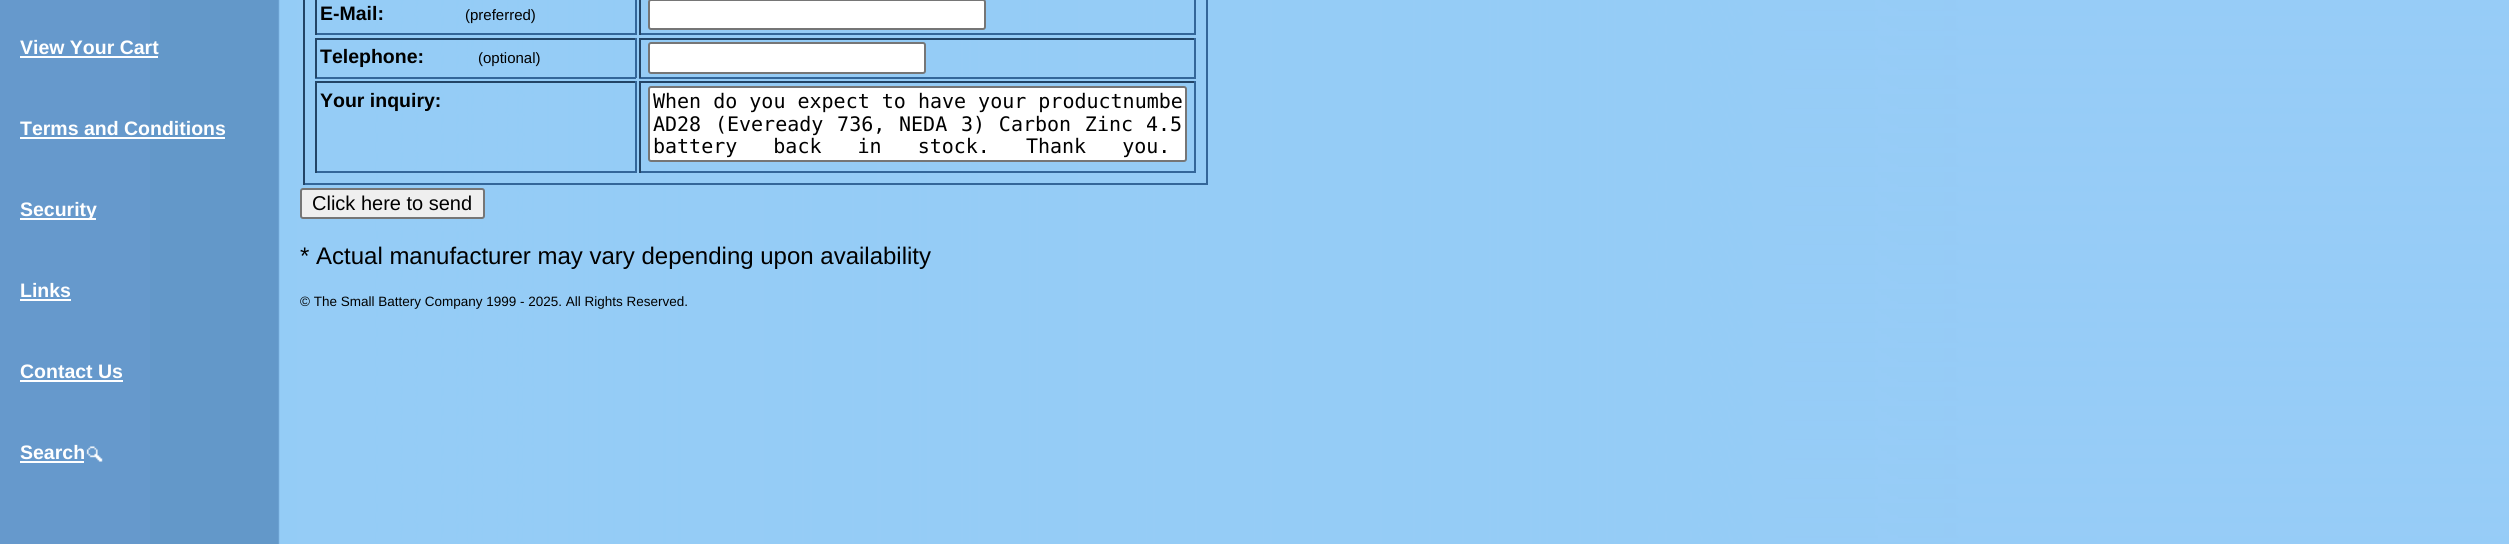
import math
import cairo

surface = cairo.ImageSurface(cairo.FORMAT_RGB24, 2509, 544)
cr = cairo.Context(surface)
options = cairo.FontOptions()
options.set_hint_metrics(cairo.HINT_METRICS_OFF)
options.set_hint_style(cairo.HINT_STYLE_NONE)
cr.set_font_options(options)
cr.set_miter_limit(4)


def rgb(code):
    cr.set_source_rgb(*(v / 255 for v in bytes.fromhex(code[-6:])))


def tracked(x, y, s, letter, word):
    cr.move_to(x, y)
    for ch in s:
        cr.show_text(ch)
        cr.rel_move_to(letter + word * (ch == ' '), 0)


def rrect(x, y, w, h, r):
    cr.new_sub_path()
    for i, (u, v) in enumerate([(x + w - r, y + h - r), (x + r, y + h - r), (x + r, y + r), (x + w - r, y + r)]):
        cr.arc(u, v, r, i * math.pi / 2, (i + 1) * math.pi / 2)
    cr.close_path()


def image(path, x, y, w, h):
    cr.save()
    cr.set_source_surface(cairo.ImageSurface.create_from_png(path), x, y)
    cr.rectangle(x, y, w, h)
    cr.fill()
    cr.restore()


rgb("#ffffff")
cr.paint()
image("img/1.png", 150, 309, 2359, 235)
image("img/2.png", 150, 0, 2359, 309)
for x, y, w, h, color in [
    (0, 0, 150, 544, "#6699cc"),
    (20, 56, 138, 2, "#ffffff"),
    (20, 137, 205, 2, "#ffffff"),
    (20, 218, 76, 2, "#ffffff"),
    (20, 299, 51, 2, "#ffffff"),
    (20, 380, 103, 2, "#ffffff"),
    (20, 461, 64, 2, "#ffffff"),
]:
    rgb(color)
    cr.rectangle(x, y, w, h)
    cr.fill()
image("img/3.png", 86, 446, 17, 16)
for x, y, w, h, color in [
    (1206, 0, 2, 185, "#336699"),
    (303, 183, 905, 2, "#336699"),
    (303, 0, 2, 185, "#224466"),
    (635, 0, 2, 35, "#336699"),
    (315, 33, 321, 2, "#336699"),
    (315, 0, 2, 35, "#224466"),
    (1194, 0, 2, 35, "#336699"),
    (639, 33, 557, 2, "#336699"),
    (639, 0, 2, 35, "#224466"),
]:
    rgb(color)
    cr.rectangle(x, y, w, h)
    cr.fill()
rgb("#ffffff")
rrect(649, 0, 336, 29, 2)
cr.fill_preserve()
rgb("#767676")
cr.stroke()
for x, y, w, h, color in [
    (315, 38, 321, 2, "#224466"),
    (635, 38, 2, 40, "#336699"),
    (315, 77, 321, 2, "#336699"),
    (315, 38, 2, 40, "#224466"),
    (639, 38, 557, 2, "#224466"),
    (1194, 38, 2, 40, "#336699"),
    (639, 77, 557, 2, "#336699"),
    (639, 38, 2, 40, "#224466"),
]:
    rgb(color)
    cr.rectangle(x, y, w, h)
    cr.fill()
rgb("#ffffff")
rrect(649, 43, 276, 30, 2)
cr.fill_preserve()
rgb("#767676")
cr.stroke()
for x, y, w, h, color in [
    (315, 81, 321, 2, "#224466"),
    (635, 81, 2, 92, "#336699"),
    (315, 171, 321, 2, "#336699"),
    (315, 81, 2, 92, "#224466"),
    (639, 81, 557, 2, "#224466"),
    (1194, 81, 2, 92, "#336699"),
    (639, 171, 557, 2, "#336699"),
    (639, 81, 2, 92, "#224466"),
]:
    rgb(color)
    cr.rectangle(x, y, w, h)
    cr.fill()
rgb("#ffffff")
rrect(649, 87, 537, 74, 2)
cr.fill_preserve()
rgb("#767676")
cr.stroke()
rgb("#efefef")
rrect(301, 189, 183, 29, 2)
cr.fill_preserve()
rgb("#767676")
cr.stroke()
cr.select_font_face("Liberation Sans", cairo.FONT_SLANT_NORMAL, cairo.FONT_WEIGHT_BOLD)
cr.set_font_size(19.5)
rgb("#ffffff")
for x, y, s in [
    (20, 54, "View Your Cart"),
    (20, 135, "Terms and Conditions"),
    (20, 216, "Security"),
    (20, 297, "Links"),
    (20, 378, "Contact Us"),
    (20, 459, "Search"),
]:
    cr.move_to(x, y)
    cr.show_text(s)
rgb("#000000")
cr.move_to(320, 20)
cr.show_text("E-Mail:")
cr.select_font_face("Liberation Sans")
cr.set_font_size(15)
cr.move_to(465, 20)
cr.show_text("(preferred)")
cr.select_font_face("Liberation Sans", cairo.FONT_SLANT_NORMAL, cairo.FONT_WEIGHT_BOLD)
cr.set_font_size(19.5)
cr.move_to(320, 63)
cr.show_text("Telephone:")
cr.select_font_face("Liberation Sans")
cr.set_font_size(15)
cr.move_to(478, 63)
cr.show_text("(optional)")
cr.select_font_face("Liberation Sans", cairo.FONT_SLANT_NORMAL, cairo.FONT_WEIGHT_BOLD)
cr.set_font_size(19.5)
cr.move_to(320, 107)
cr.show_text("Your inquiry:")
cr.select_font_face("DejaVu Sans Mono")
cr.set_font_size(20)
cr.move_to(653, 108)
cr.show_text("When do you expect to have your productnumbe")
tracked(653, 131, "AD28 (Eveready 736, NEDA 3) Carbon Zinc", 0, 1.75)
cr.move_to(1146, 131)
cr.show_text("4.5")
tracked(653, 153, "battery back in stock. Thank you.", 0, 24)
cr.select_font_face("Liberation Sans")
cr.move_to(312, 210)
cr.show_text("Click here to send")
cr.set_font_size(24)
cr.move_to(300, 264)
cr.show_text("* Actual manufacturer may vary depending upon availability")
cr.set_font_size(13.5)
cr.move_to(300, 306)
cr.show_text("© The Small Battery Company 1999 - 2025. All Rights Reserved.")
surface.write_to_png("page.png")
